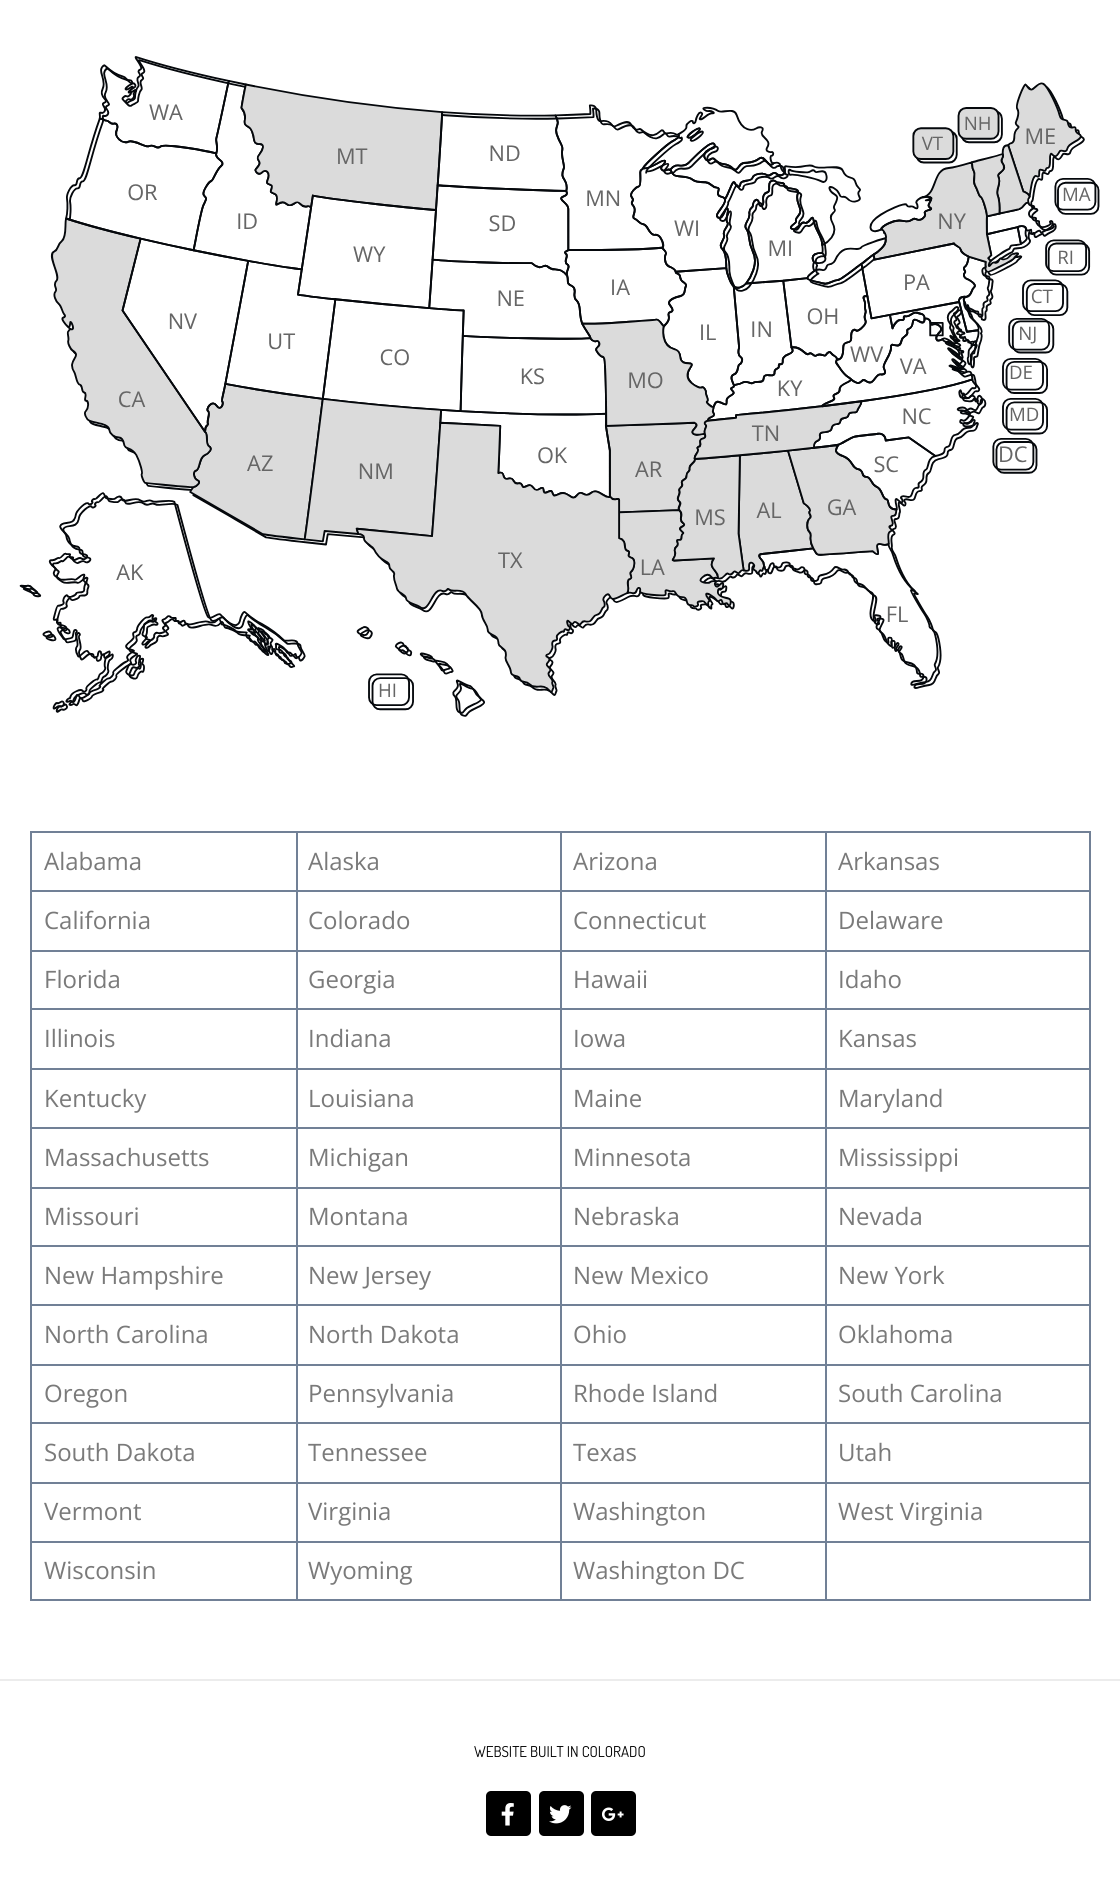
import math
import cairo

surface = cairo.ImageSurface(cairo.FORMAT_RGB24, 1120, 1883)
cr = cairo.Context(surface)
options = cairo.FontOptions()
options.set_hint_metrics(cairo.HINT_METRICS_OFF)
options.set_hint_style(cairo.HINT_STYLE_NONE)
cr.set_font_options(options)
cr.set_miter_limit(4)


def rgb(code):
    cr.set_source_rgb(*(v / 255 for v in bytes.fromhex(code[-6:])))


def rrect(x, y, w, h, r):
    cr.new_sub_path()
    for i, (u, v) in enumerate([(x + w - r, y + h - r), (x + r, y + h - r), (x + r, y + r), (x + w - r, y + r)]):
        cr.arc(u, v, r, i * math.pi / 2, (i + 1) * math.pi / 2)
    cr.close_path()


def image(path, x, y, w, h):
    cr.save()
    cr.set_source_surface(cairo.ImageSurface.create_from_png(path), x, y)
    cr.rectangle(x, y, w, h)
    cr.fill()
    cr.restore()


rgb("#ffffff")
cr.paint()
image("img/1.png", 19, 56, 1081, 661)
for x, y, w, h, color in [
    (825, 831, 266, 2, "#718096"),
    (825, 890, 266, 2, "#718096"),
    (825, 950, 266, 2, "#718096"),
    (825, 1008, 266, 2, "#718096"),
    (825, 1068, 266, 2, "#718096"),
    (825, 1127, 266, 2, "#718096"),
    (825, 1187, 266, 2, "#718096"),
    (825, 1245, 266, 2, "#718096"),
    (825, 1304, 266, 2, "#718096"),
    (825, 1364, 266, 2, "#718096"),
    (825, 1422, 266, 2, "#718096"),
    (825, 1482, 266, 2, "#718096"),
    (825, 1541, 266, 2, "#718096"),
    (1089, 1541, 2, 60, "#718096"),
    (825, 1599, 266, 2, "#718096"),
    (825, 1541, 2, 60, "#718096"),
    (560, 1541, 267, 2, "#718096"),
    (825, 1482, 2, 60, "#718096"),
    (560, 1482, 267, 2, "#718096"),
    (825, 1422, 2, 62, "#718096"),
    (560, 1422, 267, 2, "#718096"),
    (825, 1364, 2, 60, "#718096"),
    (560, 1364, 267, 2, "#718096"),
    (825, 1304, 2, 61, "#718096"),
    (560, 1304, 267, 2, "#718096"),
    (825, 1245, 2, 60, "#718096"),
    (560, 1245, 267, 2, "#718096"),
    (825, 1187, 2, 60, "#718096"),
    (560, 1187, 267, 2, "#718096"),
    (825, 1127, 2, 61, "#718096"),
    (560, 1127, 267, 2, "#718096"),
    (825, 1068, 2, 60, "#718096"),
    (560, 1068, 267, 2, "#718096"),
    (825, 1008, 2, 62, "#718096"),
    (560, 1008, 267, 2, "#718096"),
    (825, 950, 2, 60, "#718096"),
    (560, 950, 267, 2, "#718096"),
    (825, 890, 2, 61, "#718096"),
    (560, 890, 267, 2, "#718096"),
    (825, 831, 2, 60, "#718096"),
    (560, 831, 267, 2, "#718096"),
    (560, 1599, 267, 2, "#718096"),
    (560, 1541, 2, 60, "#718096"),
    (296, 1541, 265, 2, "#718096"),
    (560, 1482, 2, 60, "#718096"),
    (296, 1482, 265, 2, "#718096"),
    (560, 1422, 2, 62, "#718096"),
    (296, 1422, 265, 2, "#718096"),
    (560, 1364, 2, 60, "#718096"),
    (296, 1364, 265, 2, "#718096"),
    (560, 1304, 2, 61, "#718096"),
    (296, 1304, 265, 2, "#718096"),
    (560, 1245, 2, 60, "#718096"),
    (296, 1245, 265, 2, "#718096"),
    (560, 1187, 2, 60, "#718096"),
    (296, 1187, 265, 2, "#718096"),
    (560, 1127, 2, 61, "#718096"),
    (296, 1127, 265, 2, "#718096"),
    (560, 1068, 2, 60, "#718096"),
    (296, 1068, 265, 2, "#718096"),
    (560, 1008, 2, 62, "#718096"),
    (296, 1008, 265, 2, "#718096"),
    (560, 950, 2, 60, "#718096"),
    (296, 950, 265, 2, "#718096"),
    (560, 890, 2, 61, "#718096"),
    (296, 890, 265, 2, "#718096"),
    (560, 831, 2, 60, "#718096"),
    (296, 831, 265, 2, "#718096"),
    (296, 1599, 265, 2, "#718096"),
    (296, 1541, 2, 60, "#718096"),
    (30, 1541, 267, 2, "#718096"),
    (296, 1482, 2, 60, "#718096"),
    (30, 1482, 267, 2, "#718096"),
    (296, 1422, 2, 62, "#718096"),
    (30, 1422, 267, 2, "#718096"),
    (296, 1364, 2, 60, "#718096"),
    (30, 1364, 267, 2, "#718096"),
    (296, 1304, 2, 61, "#718096"),
    (30, 1304, 267, 2, "#718096"),
    (296, 1245, 2, 60, "#718096"),
    (30, 1245, 267, 2, "#718096"),
    (296, 1187, 2, 60, "#718096"),
    (30, 1187, 267, 2, "#718096"),
    (296, 1127, 2, 61, "#718096"),
    (30, 1127, 267, 2, "#718096"),
    (296, 1068, 2, 60, "#718096"),
    (30, 1068, 267, 2, "#718096"),
    (296, 1008, 2, 62, "#718096"),
    (30, 1008, 267, 2, "#718096"),
    (296, 950, 2, 60, "#718096"),
    (30, 950, 267, 2, "#718096"),
    (296, 890, 2, 61, "#718096"),
    (30, 890, 267, 2, "#718096"),
    (296, 831, 2, 60, "#718096"),
    (30, 831, 267, 2, "#718096"),
    (30, 1599, 267, 2, "#718096"),
    (30, 1541, 2, 60, "#718096"),
    (30, 1482, 2, 60, "#718096"),
    (30, 1422, 2, 62, "#718096"),
    (30, 1364, 2, 60, "#718096"),
    (30, 1304, 2, 61, "#718096"),
    (30, 1245, 2, 60, "#718096"),
    (30, 1187, 2, 60, "#718096"),
    (30, 1127, 2, 61, "#718096"),
    (30, 1068, 2, 60, "#718096"),
    (30, 1008, 2, 62, "#718096"),
    (30, 950, 2, 60, "#718096"),
    (30, 890, 2, 61, "#718096"),
    (30, 831, 2, 60, "#718096"),
    (1089, 1482, 2, 60, "#718096"),
    (1089, 1422, 2, 62, "#718096"),
    (1089, 1364, 2, 60, "#718096"),
    (1089, 1304, 2, 61, "#718096"),
    (1089, 1245, 2, 60, "#718096"),
    (1089, 1187, 2, 60, "#718096"),
    (1089, 1127, 2, 61, "#718096"),
    (1089, 1068, 2, 60, "#718096"),
    (1089, 1008, 2, 62, "#718096"),
    (1089, 950, 2, 60, "#718096"),
    (1089, 890, 2, 61, "#718096"),
    (1089, 831, 2, 60, "#718096"),
    (0, 1679, 1120, 2, "#ececec"),
]:
    rgb(color)
    cr.rectangle(x, y, w, h)
    cr.fill()
rgb("#000000")
rrect(486, 1791, 45, 45, 5)
cr.fill()
image("img/2.png", 501, 1803, 13, 23)
rrect(539, 1791, 45, 45, 5)
cr.fill()
image("img/3.png", 549, 1805, 23, 19)
rrect(591, 1791, 45, 45, 5)
cr.fill()
image("img/4.png", 602, 1807, 22, 14)
cr.select_font_face("Open Sans")
cr.set_font_size(24)
rgb("#7a7a7a")
for x, y, s in [
    (44, 870, "Alabama"),
    (308, 870, "Alaska"),
    (573, 870, "Arizona"),
    (838, 870, "Arkansas"),
    (44, 929, "California"),
    (308, 929, "Colorado"),
    (573, 929, "Connecticut"),
    (838, 929, "Delaware"),
    (44, 988, "Florida"),
    (308, 988, "Georgia"),
    (573, 988, "Hawaii"),
    (838, 988, "Idaho"),
    (44, 1047, "Illinois"),
    (308, 1047, "Indiana"),
    (573, 1047, "Iowa"),
    (838, 1047, "Kansas"),
    (44, 1107, "Kentucky"),
    (308, 1107, "Louisiana"),
    (573, 1107, "Maine"),
    (838, 1107, "Maryland"),
    (44, 1166, "Massachusetts"),
    (308, 1166, "Michigan"),
    (573, 1166, "Minnesota"),
    (838, 1166, "Mississippi"),
    (44, 1225, "Missouri"),
    (308, 1225, "Montana"),
    (573, 1225, "Nebraska"),
    (838, 1225, "Nevada"),
    (44, 1284, "New Hampshire"),
    (308, 1284, "New Jersey"),
    (573, 1284, "New Mexico"),
    (838, 1284, "New York"),
    (44, 1343, "North Carolina"),
    (308, 1343, "North Dakota"),
    (573, 1343, "Ohio"),
    (838, 1343, "Oklahoma"),
    (44, 1402, "Oregon"),
    (308, 1402, "Pennsylvania"),
    (573, 1402, "Rhode Island"),
    (838, 1402, "South Carolina"),
    (44, 1461, "South Dakota"),
    (308, 1461, "Tennessee"),
    (573, 1461, "Texas"),
    (838, 1461, "Utah"),
    (44, 1520, "Vermont"),
    (308, 1520, "Virginia"),
    (573, 1520, "Washington"),
    (838, 1520, "West Virginia"),
    (44, 1579, "Wisconsin"),
    (308, 1579, "Wyoming"),
    (573, 1579, "Washington DC"),
]:
    cr.move_to(x, y)
    cr.show_text(s)
cr.select_font_face("Dosis")
cr.set_font_size(15)
rgb("#000000")
cr.move_to(474, 1757)
cr.show_text("WEBSITE BUILT IN COLORADO")
surface.write_to_png("page.png")
